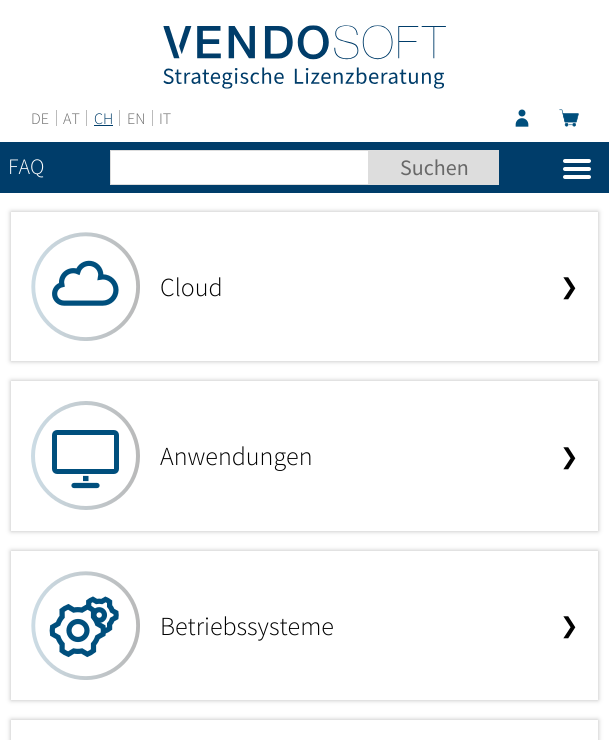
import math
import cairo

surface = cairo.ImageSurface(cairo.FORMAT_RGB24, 609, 740)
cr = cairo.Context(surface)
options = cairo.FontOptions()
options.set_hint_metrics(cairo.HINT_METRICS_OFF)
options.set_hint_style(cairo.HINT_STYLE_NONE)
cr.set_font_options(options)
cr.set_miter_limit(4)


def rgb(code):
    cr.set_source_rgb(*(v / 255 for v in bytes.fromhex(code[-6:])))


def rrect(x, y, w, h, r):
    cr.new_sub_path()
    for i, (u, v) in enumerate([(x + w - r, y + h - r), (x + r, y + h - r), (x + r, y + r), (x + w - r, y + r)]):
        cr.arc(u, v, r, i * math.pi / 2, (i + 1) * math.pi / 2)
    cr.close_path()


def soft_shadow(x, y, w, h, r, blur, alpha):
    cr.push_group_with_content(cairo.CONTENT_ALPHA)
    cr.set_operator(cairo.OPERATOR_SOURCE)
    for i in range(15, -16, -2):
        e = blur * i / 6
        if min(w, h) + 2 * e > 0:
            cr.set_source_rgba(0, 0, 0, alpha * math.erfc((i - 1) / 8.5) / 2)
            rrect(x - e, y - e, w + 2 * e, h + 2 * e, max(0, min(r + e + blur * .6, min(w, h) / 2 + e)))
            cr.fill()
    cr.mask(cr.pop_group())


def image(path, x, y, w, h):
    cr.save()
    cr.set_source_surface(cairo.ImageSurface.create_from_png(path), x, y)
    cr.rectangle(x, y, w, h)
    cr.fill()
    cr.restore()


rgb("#ffffff")
cr.paint()
image("img/1.png", 163, 25, 283, 64)
for x, y, w, h, color in [
    (56, 110, 1, 16, "#bbbbbb"),
    (86, 110, 1, 16, "#bbbbbb"),
    (119, 110, 1, 16, "#bbbbbb"),
    (94, 125, 19, 1, "#003d6a"),
    (152, 110, 1, 16, "#bbbbbb"),
]:
    rgb(color)
    cr.rectangle(x, y, w, h)
    cr.fill()
image("img/2.png", 515, 109, 14, 18)
image("img/3.png", 559, 109, 20, 18)
rgb("#003d6a")
cr.rectangle(0, 142, 609, 51)
cr.fill()
rgb("#ffffff")
cr.rectangle(110.5, 150.5, 258, 34)
cr.fill_preserve()
rgb("#dddddd")
cr.set_line_width(1)
cr.stroke()
cr.rectangle(369, 150, 130, 35)
cr.fill()
image("img/4.png", 563, 159, 28, 20)
cr.save()
cr.set_fill_rule(cairo.FILL_RULE_EVEN_ODD)
cr.new_path()
cr.move_to(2, 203)
cr.line_to(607, 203)
cr.line_to(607, 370)
cr.line_to(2, 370)
cr.close_path()
cr.move_to(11, 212)
cr.line_to(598, 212)
cr.line_to(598, 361)
cr.line_to(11, 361)
cr.close_path()
cr.clip()
rgb("#bbbbbb")
soft_shadow(11, 212, 587, 149, 0, 2.5, 1)
cr.restore()
image("img/5.png", 31, 232, 109, 109)
cr.save()
cr.set_fill_rule(cairo.FILL_RULE_EVEN_ODD)
cr.new_path()
cr.move_to(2, 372)
cr.line_to(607, 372)
cr.line_to(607, 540)
cr.line_to(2, 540)
cr.close_path()
cr.move_to(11, 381)
cr.line_to(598, 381)
cr.line_to(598, 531)
cr.line_to(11, 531)
cr.close_path()
cr.clip()
rgb("#bbbbbb")
soft_shadow(11, 381, 587, 150, 0, 2.5, 1)
cr.restore()
gradient = cairo.LinearGradient(31, 456, 140, 456)
gradient.add_color_stop_rgba(0, 0.8, 0.863, 0.898, 1)
gradient.add_color_stop_rgba(1, 0.725, 0.725, 0.725, 1)
cr.set_source(gradient)
cr.new_path()
cr.move_to(86, 405)
cr.curve_to(114, 405, 136, 428, 136, 456)
cr.curve_to(136, 484, 114, 506, 86, 506)
cr.curve_to(58, 506, 35, 484, 35, 456)
cr.curve_to(35, 428, 58, 405, 86, 405)
cr.move_to(86, 401)
cr.curve_to(56, 401, 31, 426, 31, 456)
cr.curve_to(31, 486, 56, 510, 86, 510)
cr.curve_to(116, 510, 140, 486, 140, 456)
cr.curve_to(140, 426, 116, 401, 86, 401)
cr.close_path()
cr.fill()
rrect(54.5, 432.5, 62, 39, 2.5)
rgb("#004f7d")
cr.set_line_width(5)
cr.stroke()
cr.new_path()
cr.move_to(83, 478.5)
cr.line_to(88.5, 478.5)
cr.set_line_width(5.2)
cr.stroke()
cr.new_path()
cr.move_to(74, 485.5)
cr.line_to(97, 485.5)
cr.set_line_cap(cairo.LINE_CAP_ROUND)
cr.stroke()
cr.save()
cr.set_fill_rule(cairo.FILL_RULE_EVEN_ODD)
cr.new_path()
cr.move_to(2, 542)
cr.line_to(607, 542)
cr.line_to(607, 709)
cr.line_to(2, 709)
cr.close_path()
cr.move_to(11, 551)
cr.line_to(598, 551)
cr.line_to(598, 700)
cr.line_to(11, 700)
cr.close_path()
cr.clip()
rgb("#bbbbbb")
soft_shadow(11, 551, 587, 149, 0, 2.5, 1)
cr.restore()
image("img/6.png", 31, 571, 109, 109)
cr.save()
cr.set_fill_rule(cairo.FILL_RULE_EVEN_ODD)
cr.new_path()
cr.move_to(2, 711)
cr.line_to(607, 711)
cr.line_to(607, 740)
cr.line_to(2, 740)
cr.close_path()
cr.move_to(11, 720)
cr.line_to(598, 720)
cr.line_to(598, 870)
cr.line_to(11, 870)
cr.close_path()
cr.clip()
rgb("#bbbbbb")
soft_shadow(11, 720, 587, 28, 0, 2.5, 1)
cr.restore()
cr.select_font_face("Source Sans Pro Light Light")
cr.set_font_size(16)
rgb("#686868")
cr.move_to(31, 124)
cr.show_text("DE")
cr.move_to(63, 124)
cr.show_text("AT")
rgb("#003d6a")
cr.move_to(94, 124)
cr.show_text("CH")
rgb("#686868")
cr.move_to(127, 124)
cr.show_text("EN")
cr.move_to(159, 124)
cr.show_text("IT")
cr.set_font_size(22)
rgb("#ffffff")
cr.move_to(8, 174)
cr.show_text("FAQ")
cr.select_font_face("Source Sans Pro")
rgb("#686868")
cr.move_to(400, 175)
cr.show_text("Suchen")
cr.select_font_face("Source Sans Pro Light Light")
cr.set_font_size(26)
rgb("#000000")
cr.move_to(160, 296)
cr.show_text("Cloud")
cr.select_font_face("DejaVu Sans")
cr.set_font_size(22)
cr.move_to(560, 294)
cr.show_text("❯")
cr.select_font_face("Source Sans Pro Light Light")
cr.set_font_size(26)
cr.move_to(160, 465)
cr.show_text("Anwendungen")
cr.select_font_face("DejaVu Sans")
cr.set_font_size(22)
cr.move_to(560, 464)
cr.show_text("❯")
cr.select_font_face("Source Sans Pro Light Light")
cr.set_font_size(26)
cr.move_to(160, 635)
cr.show_text("Betriebssysteme")
cr.select_font_face("DejaVu Sans")
cr.set_font_size(22)
cr.move_to(560, 633)
cr.show_text("❯")
surface.write_to_png("page.png")
